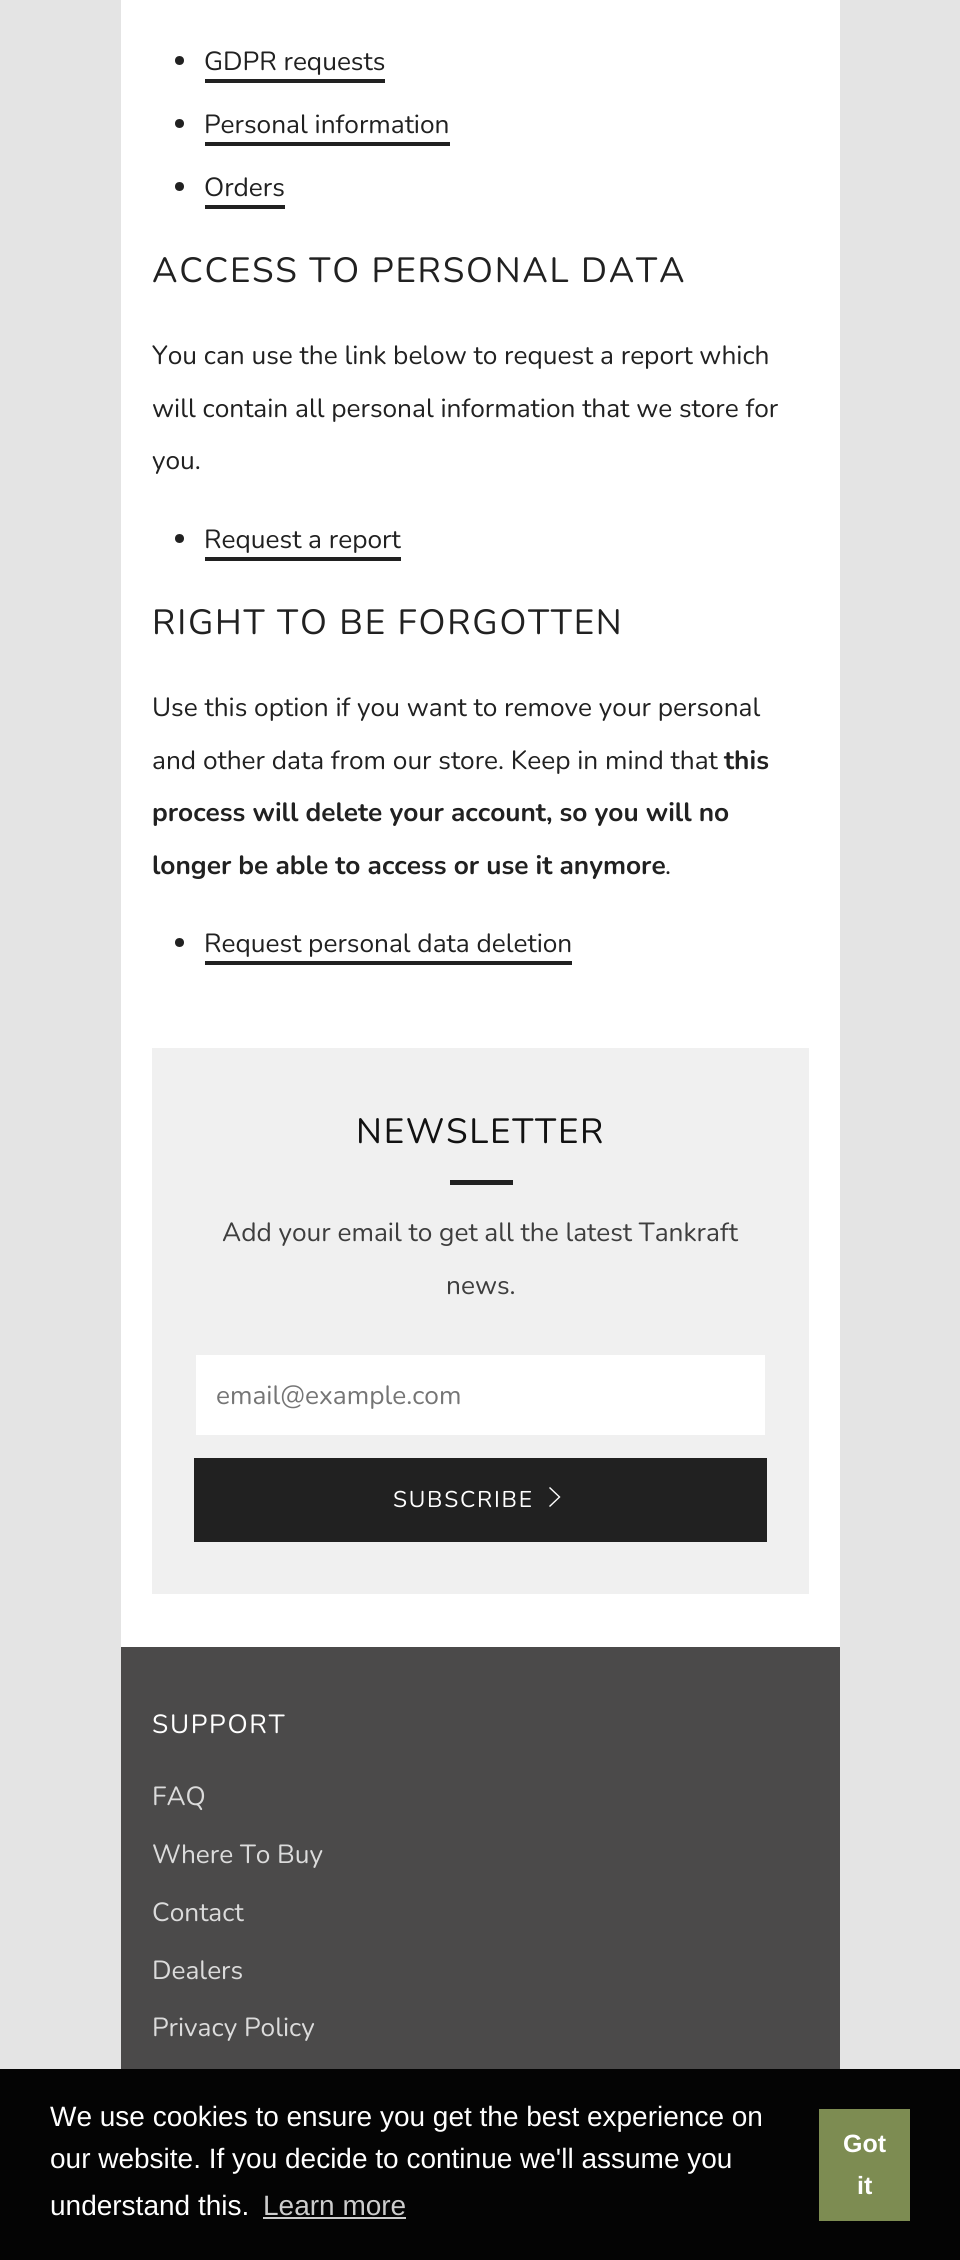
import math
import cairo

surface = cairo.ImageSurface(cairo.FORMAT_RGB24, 960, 2260)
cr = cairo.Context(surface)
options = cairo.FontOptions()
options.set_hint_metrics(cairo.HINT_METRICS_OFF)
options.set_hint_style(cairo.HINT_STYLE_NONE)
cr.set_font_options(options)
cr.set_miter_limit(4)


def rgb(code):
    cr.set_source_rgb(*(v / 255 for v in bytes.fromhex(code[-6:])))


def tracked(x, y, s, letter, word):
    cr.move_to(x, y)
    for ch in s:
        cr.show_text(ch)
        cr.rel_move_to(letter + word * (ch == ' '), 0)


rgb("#e4e4e4")
cr.paint()
rgb("#ffffff")
cr.rectangle(121, 0, 719, 1647)
cr.fill()
rgb("#212121")
cr.arc(179.5, 60.5, 4.5, 0, 2 * math.pi)
cr.fill()
cr.rectangle(205, 79, 180, 4)
cr.fill()
cr.arc(179.5, 123.5, 4.5, 0, 2 * math.pi)
cr.fill()
cr.rectangle(205, 142, 245, 4)
cr.fill()
cr.arc(179.5, 186.5, 4.5, 0, 2 * math.pi)
cr.fill()
cr.rectangle(205, 205, 80, 4)
cr.fill()
cr.arc(179.5, 538.5, 4.5, 0, 2 * math.pi)
cr.fill()
cr.rectangle(205, 557, 196, 4)
cr.fill()
cr.arc(179.5, 942.5, 4.5, 0, 2 * math.pi)
cr.fill()
for x, y, w, h, color in [
    (205, 961, 367, 4, "#212121"),
    (152, 1048, 657, 546, "#f0f0f0"),
    (450, 1180, 63, 5, "#212121"),
    (196, 1355, 569, 80, "#ffffff"),
    (194, 1458, 573, 84, "#212121"),
]:
    rgb(color)
    cr.rectangle(x, y, w, h)
    cr.fill()
rgb("#ffffff")
cr.new_path()
cr.move_to(549, 1506)
cr.line_to(550, 1507)
cr.line_to(560.5, 1497)
cr.line_to(550, 1487)
cr.line_to(549, 1488)
cr.line_to(558.5, 1497)
cr.close_path()
cr.fill()
for x, y, w, h, color in [
    (121, 1647, 719, 422, "#4b4a4a"),
    (0, 2069, 960, 191, "#040404"),
    (263, 2217, 143, 2, "#cdcdcd"),
    (819, 2109, 91, 112, "#7d8c52"),
]:
    rgb(color)
    cr.rectangle(x, y, w, h)
    cr.fill()
cr.select_font_face("Nunito")
cr.set_font_size(26.25)
rgb("#212121")
for x, y, s in [
    (204, 70, "GDPR requests"),
    (204, 133, "Personal information"),
    (204, 196, "Orders"),
]:
    cr.move_to(x, y)
    cr.show_text(s)
cr.set_font_size(35)
tracked(152, 282, "ACCESS TO PERSONAL DATA", 1.75, 0)
cr.set_font_size(26.25)
for x, y, s in [
    (152, 364, "You can use the link below to request a report which"),
    (152, 417, "will contain all personal information that we store for"),
    (152, 469, "you."),
    (204, 548, "Request a report"),
]:
    cr.move_to(x, y)
    cr.show_text(s)
cr.set_font_size(35)
tracked(152, 634, "RIGHT TO BE FORGOTTEN", 1.75, 0)
cr.set_font_size(26.25)
cr.move_to(152, 716)
cr.show_text("Use this option if you want to remove your personal")
cr.move_to(152, 769)
cr.show_text("and other data from our store. Keep in mind that")
cr.select_font_face("Nunito", cairo.FONT_SLANT_NORMAL, cairo.FONT_WEIGHT_BOLD)
for x, y, s in [
    (724, 769, "this"),
    (152, 821, "process will delete your account, so you will no"),
    (152, 874, "longer be able to access or use it anymore"),
]:
    cr.move_to(x, y)
    cr.show_text(s)
cr.select_font_face("Nunito")
cr.move_to(665, 874)
cr.show_text(".")
cr.move_to(204, 952)
cr.show_text("Request personal data deletion")
cr.set_font_size(35)
rgb("#111111")
tracked(356, 1143, "NEWSLETTER", 1.75, 0)
cr.set_font_size(26.25)
rgb("#3e3e3e")
cr.move_to(222, 1241)
cr.show_text("Add your email to get all the latest Tankraft")
cr.move_to(446, 1294)
cr.show_text("news.")
rgb("#757575")
cr.move_to(216, 1404)
cr.show_text("email@example.com")
cr.set_font_size(22.75)
rgb("#ffffff")
tracked(393, 1507, "SUBSCRIBE", 1.75, 0)
cr.set_font_size(26.25)
tracked(152, 1733, "SUPPORT", 1.75, 0)
rgb("#dbdbdb")
for x, y, s in [
    (152, 1805, "FAQ"),
    (152, 1863, "Where To Buy"),
    (152, 1921, "Contact"),
    (152, 1979, "Dealers"),
    (152, 2036, "Privacy Policy"),
]:
    cr.move_to(x, y)
    cr.show_text(s)
cr.select_font_face("Liberation Sans")
cr.set_font_size(28)
rgb("#ffffff")
for x, y, s in [
    (50, 2126, "We use cookies to ensure you get the best experience on"),
    (50, 2168, "our website. If you decide to continue we'll assume you"),
    (50, 2215, "understand this."),
]:
    cr.move_to(x, y)
    cr.show_text(s)
rgb("#cdcdcd")
cr.move_to(263, 2215)
cr.show_text("Learn more")
cr.select_font_face("Liberation Sans", cairo.FONT_SLANT_NORMAL, cairo.FONT_WEIGHT_BOLD)
cr.set_font_size(25)
rgb("#ffffff")
cr.move_to(843, 2152)
cr.show_text("Got")
cr.move_to(857, 2194)
cr.show_text("it")
surface.write_to_png("page.png")
